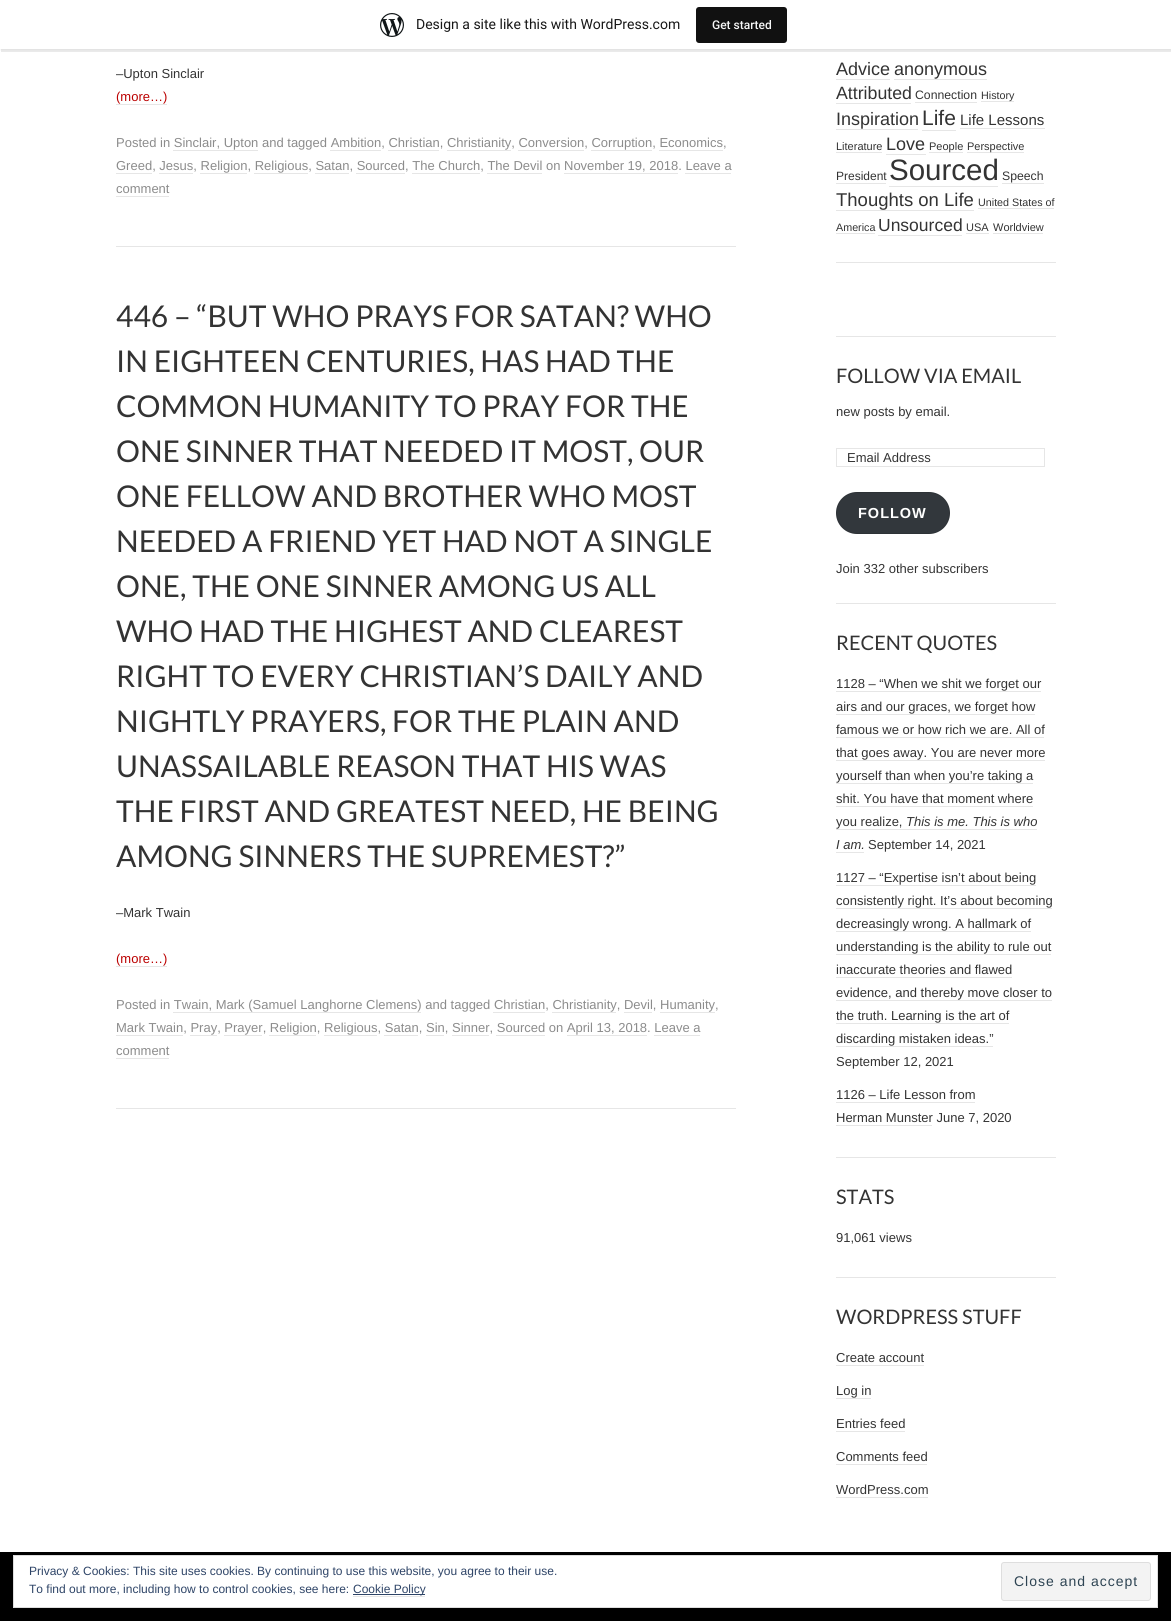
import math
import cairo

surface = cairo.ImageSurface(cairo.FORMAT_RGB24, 1171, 1621)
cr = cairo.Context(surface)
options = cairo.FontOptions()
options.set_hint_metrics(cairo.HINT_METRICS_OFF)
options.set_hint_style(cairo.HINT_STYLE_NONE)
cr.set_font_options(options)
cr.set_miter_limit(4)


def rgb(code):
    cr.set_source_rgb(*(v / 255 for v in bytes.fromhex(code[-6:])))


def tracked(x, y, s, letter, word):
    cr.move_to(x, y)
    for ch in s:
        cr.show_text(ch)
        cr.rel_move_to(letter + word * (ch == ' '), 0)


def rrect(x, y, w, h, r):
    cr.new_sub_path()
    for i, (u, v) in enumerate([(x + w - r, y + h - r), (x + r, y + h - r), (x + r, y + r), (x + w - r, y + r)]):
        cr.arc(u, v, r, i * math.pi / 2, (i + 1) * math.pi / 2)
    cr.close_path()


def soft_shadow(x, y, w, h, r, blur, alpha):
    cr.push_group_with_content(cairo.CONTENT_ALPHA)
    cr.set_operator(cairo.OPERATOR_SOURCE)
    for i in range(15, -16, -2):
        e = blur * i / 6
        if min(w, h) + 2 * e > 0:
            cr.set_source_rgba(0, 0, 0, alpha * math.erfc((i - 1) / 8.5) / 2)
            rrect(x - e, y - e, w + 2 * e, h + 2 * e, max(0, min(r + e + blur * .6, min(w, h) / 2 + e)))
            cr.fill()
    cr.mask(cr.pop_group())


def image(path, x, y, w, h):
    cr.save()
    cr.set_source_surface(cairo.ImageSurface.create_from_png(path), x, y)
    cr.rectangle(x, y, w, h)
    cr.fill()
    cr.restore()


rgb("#ffffff")
cr.paint()
rgb("#000000")
soft_shadow(0, 1, 1171, 49, 0, 1, 0.05)
cr.set_source_rgba(0, 0, 0, 0.08)
cr.new_path()
cr.move_to(1, 49)
cr.line_to(1, 52)
cr.line_to(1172, 52)
cr.line_to(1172, 3)
cr.line_to(1171, 3)
cr.line_to(1171, 49)
cr.close_path()
cr.fill()
rgb("#ffffff")
cr.rectangle(0, 0, 1171, 49)
cr.fill()
image("img/1.png", 380, 13, 24, 24)
rgb("#111111")
rrect(696, 7, 91, 36, 3)
cr.fill()
for x, y, w, h, color in [
    (116, 246, 620, 1, "#e6e6e6"),
    (116, 104, 51, 1, "#e6e6e6"),
    (173, 150, 85, 1, "#e6e6e6"),
    (330, 150, 51, 1, "#e6e6e6"),
    (388, 150, 51, 1, "#e6e6e6"),
    (447, 150, 64, 1, "#e6e6e6"),
    (518, 150, 66, 1, "#e6e6e6"),
    (591, 150, 61, 1, "#e6e6e6"),
    (659, 150, 64, 1, "#e6e6e6"),
    (116, 173, 36, 1, "#e6e6e6"),
    (159, 173, 34, 1, "#e6e6e6"),
    (200, 173, 47, 1, "#e6e6e6"),
    (254, 173, 54, 1, "#e6e6e6"),
    (315, 173, 34, 1, "#e6e6e6"),
    (356, 173, 49, 1, "#e6e6e6"),
    (412, 173, 68, 1, "#e6e6e6"),
    (487, 173, 55, 1, "#e6e6e6"),
    (564, 173, 114, 1, "#e6e6e6"),
    (685, 173, 46, 1, "#e6e6e6"),
    (116, 196, 53, 1, "#e6e6e6"),
    (116, 1108, 620, 1, "#e6e6e6"),
    (116, 966, 51, 1, "#e6e6e6"),
    (173, 1012, 248, 1, "#e6e6e6"),
    (493, 1012, 52, 1, "#e6e6e6"),
    (552, 1012, 64, 1, "#e6e6e6"),
    (624, 1012, 28, 1, "#e6e6e6"),
    (660, 1012, 55, 1, "#e6e6e6"),
    (116, 1035, 67, 1, "#e6e6e6"),
    (190, 1035, 27, 1, "#e6e6e6"),
    (224, 1035, 38, 1, "#e6e6e6"),
    (269, 1035, 47, 1, "#e6e6e6"),
    (324, 1035, 53, 1, "#e6e6e6"),
    (384, 1035, 34, 1, "#e6e6e6"),
    (426, 1035, 18, 1, "#e6e6e6"),
    (452, 1035, 37, 1, "#e6e6e6"),
    (496, 1035, 49, 1, "#e6e6e6"),
    (567, 1035, 80, 1, "#e6e6e6"),
    (654, 1035, 46, 1, "#e6e6e6"),
    (116, 1058, 53, 1, "#e6e6e6"),
    (836, 262, 220, 1, "#e6e6e6"),
    (836, 79, 54, 1, "#e6e6e6"),
    (894, 79, 93, 1, "#e6e6e6"),
    (836, 103, 75, 1, "#e6e6e6"),
    (915, 102, 62, 1, "#e6e6e6"),
    (981, 101, 33, 1, "#e6e6e6"),
    (836, 129, 82, 1, "#e6e6e6"),
    (922, 130, 34, 1, "#e6e6e6"),
    (960, 128, 85, 1, "#e6e6e6"),
    (836, 152, 46, 1, "#e6e6e6"),
    (886, 154, 40, 1, "#e6e6e6"),
    (929, 152, 34, 1, "#e6e6e6"),
    (967, 152, 57, 1, "#e6e6e6"),
    (836, 183, 50, 1, "#e6e6e6"),
    (889, 186, 109, 1, "#e6e6e6"),
    (1002, 183, 42, 1, "#e6e6e6"),
    (836, 210, 138, 1, "#e6e6e6"),
    (978, 208, 76, 1, "#e6e6e6"),
    (836, 233, 39, 1, "#e6e6e6"),
    (878, 235, 84, 1, "#e6e6e6"),
    (966, 233, 23, 1, "#e6e6e6"),
    (993, 233, 50, 1, "#e6e6e6"),
    (836, 336, 220, 1, "#e6e6e6"),
    (836, 603, 220, 1, "#e6e6e6"),
]:
    rgb(color)
    cr.rectangle(x, y, w, h)
    cr.fill()
cr.rectangle(836.5, 448.5, 208, 18)
cr.set_line_width(1)
cr.stroke()
rgb("#32373c")
rrect(836, 492, 114, 42, 21)
cr.fill()
rrect(836.5, 492.5, 113, 41, 20.5)
cr.set_source_rgba(0, 0, 0, 0.1)
cr.stroke()
for x, y, w, h, color in [
    (836, 1157, 220, 1, "#e6e6e6"),
    (836, 691, 205, 1, "#e6e6e6"),
    (836, 714, 199, 1, "#e6e6e6"),
    (836, 737, 208, 1, "#e6e6e6"),
    (836, 760, 209, 1, "#e6e6e6"),
    (836, 783, 197, 1, "#e6e6e6"),
    (836, 806, 197, 1, "#e6e6e6"),
    (836, 829, 201, 1, "#e6e6e6"),
    (836, 852, 28, 1, "#e6e6e6"),
    (836, 885, 200, 1, "#e6e6e6"),
    (836, 908, 216, 1, "#e6e6e6"),
    (836, 931, 195, 1, "#e6e6e6"),
    (836, 954, 215, 1, "#e6e6e6"),
    (836, 977, 176, 1, "#e6e6e6"),
    (836, 1000, 216, 1, "#e6e6e6"),
    (836, 1023, 173, 1, "#e6e6e6"),
    (836, 1046, 157, 1, "#e6e6e6"),
    (836, 1102, 139, 1, "#e6e6e6"),
    (836, 1125, 96, 1, "#e6e6e6"),
    (836, 1277, 220, 1, "#e6e6e6"),
    (836, 1365, 88, 1, "#e6e6e6"),
    (836, 1398, 35, 1, "#e6e6e6"),
    (836, 1431, 69, 1, "#e6e6e6"),
    (836, 1464, 91, 1, "#e6e6e6"),
    (836, 1497, 92, 1, "#e6e6e6"),
    (0, 1552, 1171, 69, "#000000"),
]:
    rgb(color)
    cr.rectangle(x, y, w, h)
    cr.fill()
rgb("#ffffff")
cr.rectangle(13.5, 1555.5, 1144, 52)
cr.fill_preserve()
rgb("#dedede")
cr.stroke()
rgb("#e6e6e6")
cr.rectangle(353, 1596, 72, 1)
cr.fill()
rgb("#2e4467")
cr.rectangle(353, 1594, 72, 1)
cr.fill()
rgb("#f3f3f3")
rrect(1001.5, 1562.5, 149, 38, 2.5)
cr.fill_preserve()
rgb("#dedede")
cr.stroke()
cr.select_font_face("Roboto")
cr.set_font_size(14)
rgb("#171717")
cr.move_to(416, 29)
cr.show_text("Design a site like this with WordPress.com")
cr.select_font_face("Roboto Medium")
cr.set_font_size(12)
rgb("#f6f7f7")
cr.move_to(712, 29)
cr.show_text("Get started")
cr.select_font_face("Liberation Sans")
cr.set_font_size(13)
rgb("#333333")
cr.move_to(116, 78)
cr.show_text("–Upton Sinclair")
rgb("#bb0000")
cr.move_to(116, 101)
cr.show_text("(more…)")
rgb("#8c8c8c")
for x, y, s in [
    (116, 147, "Posted in Sinclair, Upton and tagged Ambition, Christian, Christianity, Conversion, Corruption, Economics,"),
    (116, 170, "Greed, Jesus, Religion, Religious, Satan, Sourced, The Church, The Devil on November 19, 2018. Leave a"),
    (116, 193, "comment"),
]:
    cr.move_to(x, y)
    cr.show_text(s)
cr.select_font_face("Lato")
cr.set_font_size(30)
rgb("#333333")
for x, y, s in [
    (116, 327, "446 – “BUT WHO PRAYS FOR SATAN? WHO"),
    (116, 372, "IN EIGHTEEN CENTURIES, HAS HAD THE"),
    (116, 417, "COMMON HUMANITY TO PRAY FOR THE"),
    (116, 462, "ONE SINNER THAT NEEDED IT MOST, OUR"),
    (116, 507, "ONE FELLOW AND BROTHER WHO MOST"),
    (116, 552, "NEEDED A FRIEND YET HAD NOT A SINGLE"),
    (116, 597, "ONE, THE ONE SINNER AMONG US ALL"),
    (116, 642, "WHO HAD THE HIGHEST AND CLEAREST"),
    (116, 687, "RIGHT TO EVERY CHRISTIAN’S DAILY AND"),
    (116, 732, "NIGHTLY PRAYERS, FOR THE PLAIN AND"),
    (116, 777, "UNASSAILABLE REASON THAT HIS WAS"),
    (116, 822, "THE FIRST AND GREATEST NEED, HE BEING"),
    (116, 867, "AMONG SINNERS THE SUPREMEST?”"),
]:
    cr.move_to(x, y)
    cr.show_text(s)
cr.select_font_face("Liberation Sans")
cr.set_font_size(13)
cr.move_to(116, 917)
cr.show_text("–Mark Twain")
rgb("#bb0000")
cr.move_to(116, 963)
cr.show_text("(more…)")
rgb("#8c8c8c")
for x, y, s in [
    (116, 1009, "Posted in Twain, Mark (Samuel Langhorne Clemens) and tagged Christian, Christianity, Devil, Humanity,"),
    (116, 1032, "Mark Twain, Pray, Prayer, Religion, Religious, Satan, Sin, Sinner, Sourced on April 13, 2018. Leave a"),
    (116, 1055, "comment"),
]:
    cr.move_to(x, y)
    cr.show_text(s)
cr.set_font_size(18)
rgb("#333333")
cr.move_to(836, 75)
cr.show_text("Advice")
cr.move_to(894, 75)
cr.show_text("anonymous")
cr.set_font_size(17.75)
cr.move_to(836, 99)
cr.show_text("Attributed")
cr.set_font_size(12.25)
cr.move_to(915, 99)
cr.show_text("Connection")
cr.set_font_size(10.75)
cr.move_to(981, 99)
cr.show_text("History")
cr.set_font_size(18)
cr.move_to(836, 125)
cr.show_text("Inspiration")
cr.set_font_size(21)
cr.move_to(922, 125)
cr.show_text("Life")
cr.set_font_size(15)
cr.move_to(960, 125)
cr.show_text("Life Lessons")
cr.set_font_size(11)
cr.move_to(836, 150)
cr.show_text("Literature")
cr.set_font_size(18)
cr.move_to(886, 150)
cr.show_text("Love")
cr.set_font_size(11)
cr.move_to(929, 150)
cr.show_text("People")
cr.move_to(967, 150)
cr.show_text("Perspective")
cr.set_font_size(12)
cr.move_to(836, 180)
cr.show_text("President")
cr.set_font_size(29.5)
cr.move_to(889, 180)
cr.show_text("Sourced")
cr.set_font_size(12.25)
cr.move_to(1002, 180)
cr.show_text("Speech")
cr.set_font_size(18.5)
cr.move_to(836, 206)
cr.show_text("Thoughts on Life")
cr.set_font_size(10.75)
cr.move_to(978, 206)
cr.show_text("United States of")
cr.move_to(836, 231)
cr.show_text("America")
cr.set_font_size(17.5)
cr.move_to(878, 231)
cr.show_text("Unsourced")
cr.set_font_size(11)
cr.move_to(966, 231)
cr.show_text("USA")
cr.move_to(993, 231)
cr.show_text("Worldview")
cr.select_font_face("Lato")
cr.set_font_size(20)
cr.move_to(836, 383)
cr.show_text("FOLLOW VIA EMAIL")
cr.select_font_face("Liberation Sans")
cr.set_font_size(13)
cr.move_to(836, 416)
cr.show_text("new posts by email.")
cr.move_to(847, 462)
cr.show_text("Email Address")
cr.select_font_face("Liberation Sans", cairo.FONT_SLANT_NORMAL, cairo.FONT_WEIGHT_BOLD)
cr.set_font_size(14.5)
rgb("#ffffff")
tracked(858, 518, "FOLLOW", 1, 0)
cr.select_font_face("Liberation Sans")
cr.set_font_size(13)
rgb("#333333")
cr.move_to(836, 573)
cr.show_text("Join 332 other subscribers")
cr.select_font_face("Lato")
cr.set_font_size(20)
cr.move_to(836, 650)
cr.show_text("RECENT QUOTES")
cr.select_font_face("Liberation Sans")
cr.set_font_size(13)
for x, y, s in [
    (836, 688, "1128 – “When we shit we forget our"),
    (836, 711, "airs and our graces, we forget how"),
    (836, 734, "famous we or how rich we are. All of"),
    (836, 757, "that goes away. You are never more"),
    (836, 780, "yourself than when you’re taking a"),
    (836, 803, "shit. You have that moment where"),
    (836, 826, "you realize,"),
]:
    cr.move_to(x, y)
    cr.show_text(s)
cr.select_font_face("Liberation Sans", cairo.FONT_SLANT_ITALIC)
cr.move_to(906, 826)
cr.show_text("This is me. This is who")
cr.move_to(836, 849)
cr.show_text("I am.")
cr.select_font_face("Liberation Sans")
for x, y, s in [
    (868, 849, "September 14, 2021"),
    (836, 882, "1127 – “Expertise isn’t about being"),
    (836, 905, "consistently right. It’s about becoming"),
    (836, 928, "decreasingly wrong. A hallmark of"),
    (836, 951, "understanding is the ability to rule out"),
    (836, 974, "inaccurate theories and flawed"),
    (836, 997, "evidence, and thereby move closer to"),
    (836, 1020, "the truth. Learning is the art of"),
    (836, 1043, "discarding mistaken ideas.”"),
    (836, 1066, "September 12, 2021"),
    (836, 1099, "1126 – Life Lesson from"),
    (836, 1122, "Herman Munster June 7, 2020"),
]:
    cr.move_to(x, y)
    cr.show_text(s)
cr.select_font_face("Lato")
cr.set_font_size(20)
cr.move_to(836, 1204)
cr.show_text("STATS")
cr.select_font_face("Liberation Sans")
cr.set_font_size(13)
cr.move_to(836, 1242)
cr.show_text("91,061 views")
cr.select_font_face("Lato")
cr.set_font_size(20)
cr.move_to(836, 1324)
cr.show_text("WORDPRESS STUFF")
cr.select_font_face("Liberation Sans")
cr.set_font_size(13)
for x, y, s in [
    (836, 1362, "Create account"),
    (836, 1395, "Log in"),
    (836, 1428, "Entries feed"),
    (836, 1461, "Comments feed"),
    (836, 1494, "WordPress.com"),
]:
    cr.move_to(x, y)
    cr.show_text(s)
cr.set_font_size(12)
rgb("#2e4467")
for x, y, s in [
    (29, 1575, "Privacy & Cookies: This site uses cookies. By continuing to use this website, you agree to their use."),
    (29, 1593, "To find out more, including how to control cookies, see here:"),
    (353, 1593, "Cookie Policy"),
]:
    cr.move_to(x, y)
    cr.show_text(s)
cr.set_font_size(14)
rgb("#2e4453")
tracked(1014, 1586, "Close and accept", 1, 0)
surface.write_to_png("page.png")
